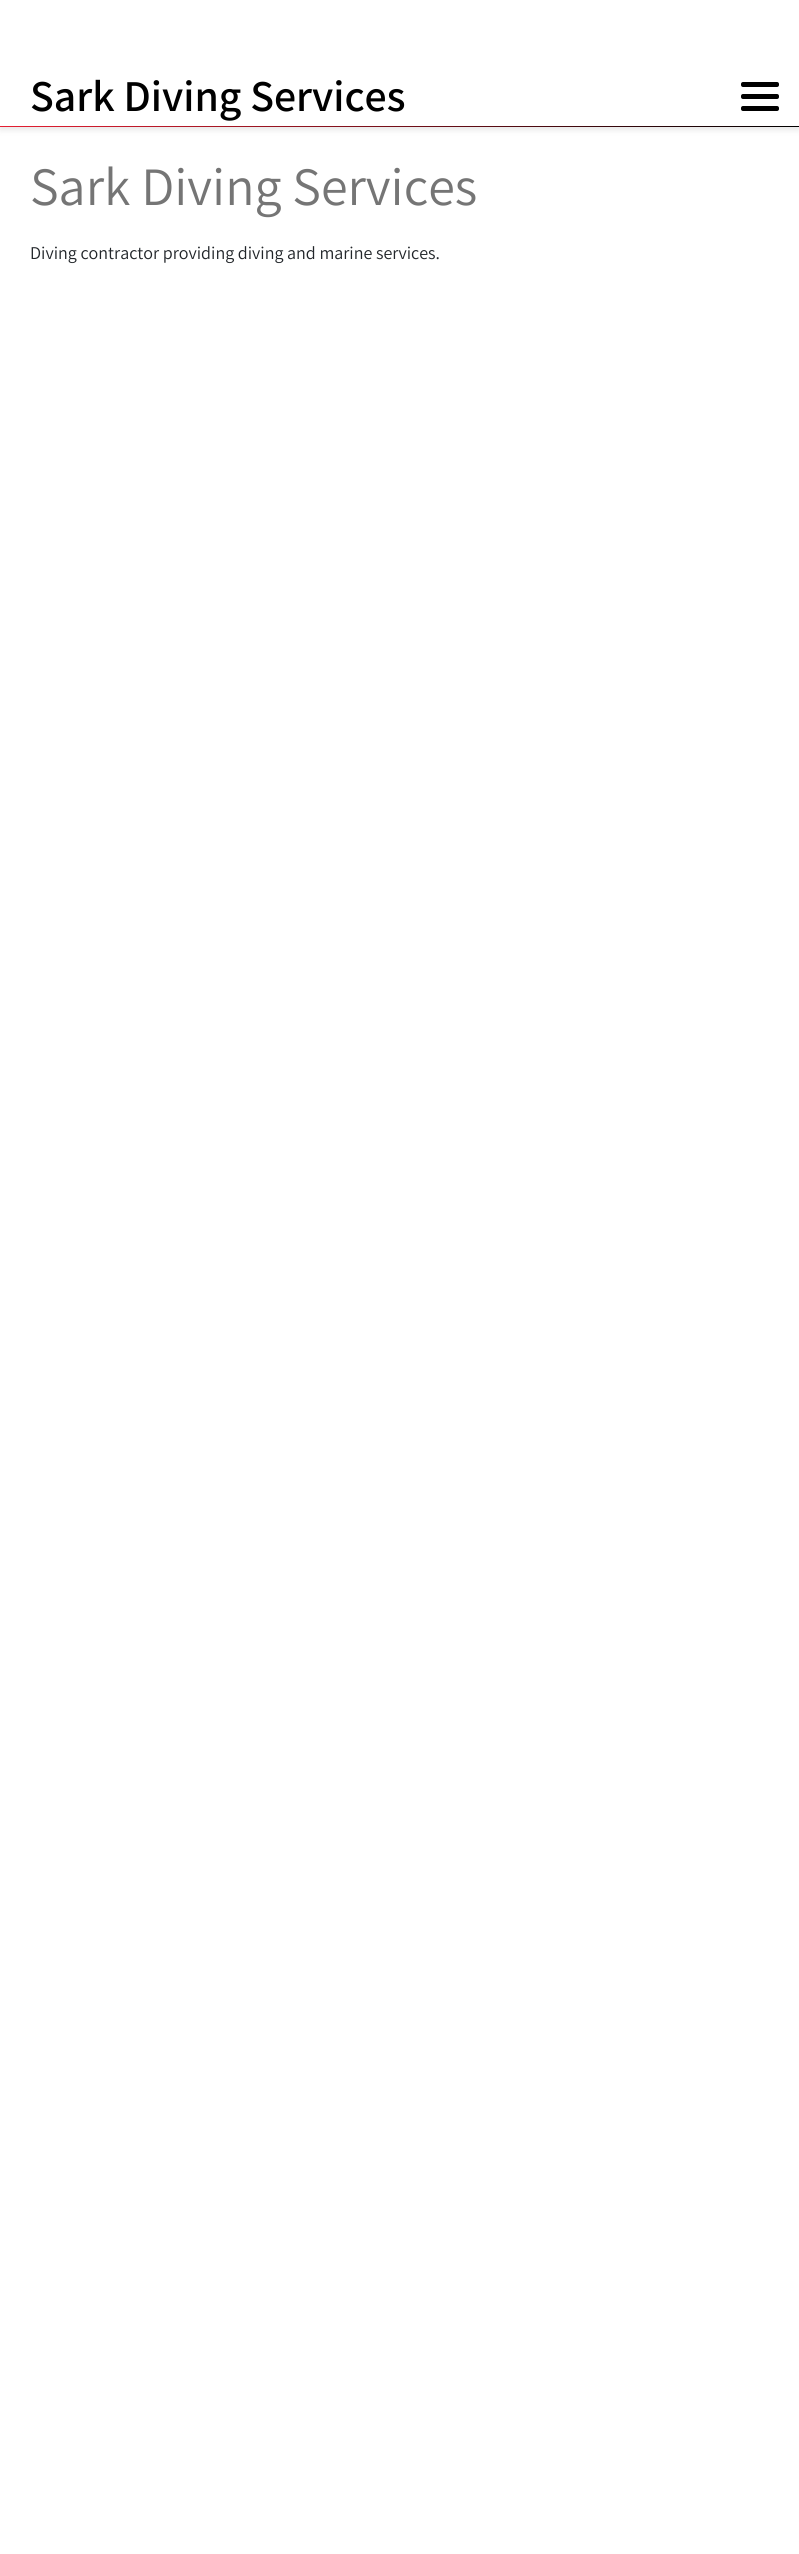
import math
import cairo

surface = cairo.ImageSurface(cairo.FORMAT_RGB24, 799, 2554)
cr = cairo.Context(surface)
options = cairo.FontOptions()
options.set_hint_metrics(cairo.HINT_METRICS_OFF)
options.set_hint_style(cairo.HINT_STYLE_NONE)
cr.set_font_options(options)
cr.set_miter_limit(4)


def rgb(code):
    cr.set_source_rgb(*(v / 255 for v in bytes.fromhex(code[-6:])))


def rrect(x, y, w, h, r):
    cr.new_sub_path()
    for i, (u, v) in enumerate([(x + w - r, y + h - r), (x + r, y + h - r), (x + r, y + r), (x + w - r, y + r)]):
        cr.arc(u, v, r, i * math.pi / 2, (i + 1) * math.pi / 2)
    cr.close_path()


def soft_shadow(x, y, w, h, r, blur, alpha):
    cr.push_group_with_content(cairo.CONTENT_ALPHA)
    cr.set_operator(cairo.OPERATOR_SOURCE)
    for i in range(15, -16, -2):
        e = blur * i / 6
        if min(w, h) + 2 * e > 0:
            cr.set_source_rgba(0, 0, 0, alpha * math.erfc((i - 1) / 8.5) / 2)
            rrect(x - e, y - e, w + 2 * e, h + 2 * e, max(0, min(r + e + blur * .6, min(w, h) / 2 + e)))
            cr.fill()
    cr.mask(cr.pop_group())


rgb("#ffffff")
cr.paint()
rgb("#000000")
soft_shadow(0, 4, 799, 126, 0, 4, 0.05)
soft_shadow(0, 4, 799, 126, 0, 2, 0.05)
rgb("#ffffff")
cr.rectangle(0, 0, 799, 126)
cr.fill()
rgb("#000000")
rrect(741, 94, 38, 5, 2)
cr.fill()
rrect(741, 82, 38, 5, 2)
cr.fill()
rrect(741, 106, 38, 5, 2)
cr.fill()
gradient = cairo.LinearGradient(799, 127, 0, 126)
gradient.add_color_stop_rgba(0, 0, 0, 0, 1)
gradient.add_color_stop_rgba(1, 0.902, 0.118, 0.196, 1)
cr.set_source(gradient)
cr.rectangle(0, 126, 799, 1)
cr.fill()
cr.select_font_face("Assistant SemiBold")
cr.set_font_size(44)
rgb("#000000")
cr.move_to(30, 111)
cr.show_text("Sark Diving Services")
cr.select_font_face("Assistant")
cr.set_font_size(54)
rgb("#757575")
cr.move_to(30, 205)
cr.show_text("Sark Diving Services")
cr.set_font_size(18)
rgb("#22262a")
cr.move_to(30, 259)
cr.show_text("Diving contractor providing diving and marine services.")
surface.write_to_png("page.png")
